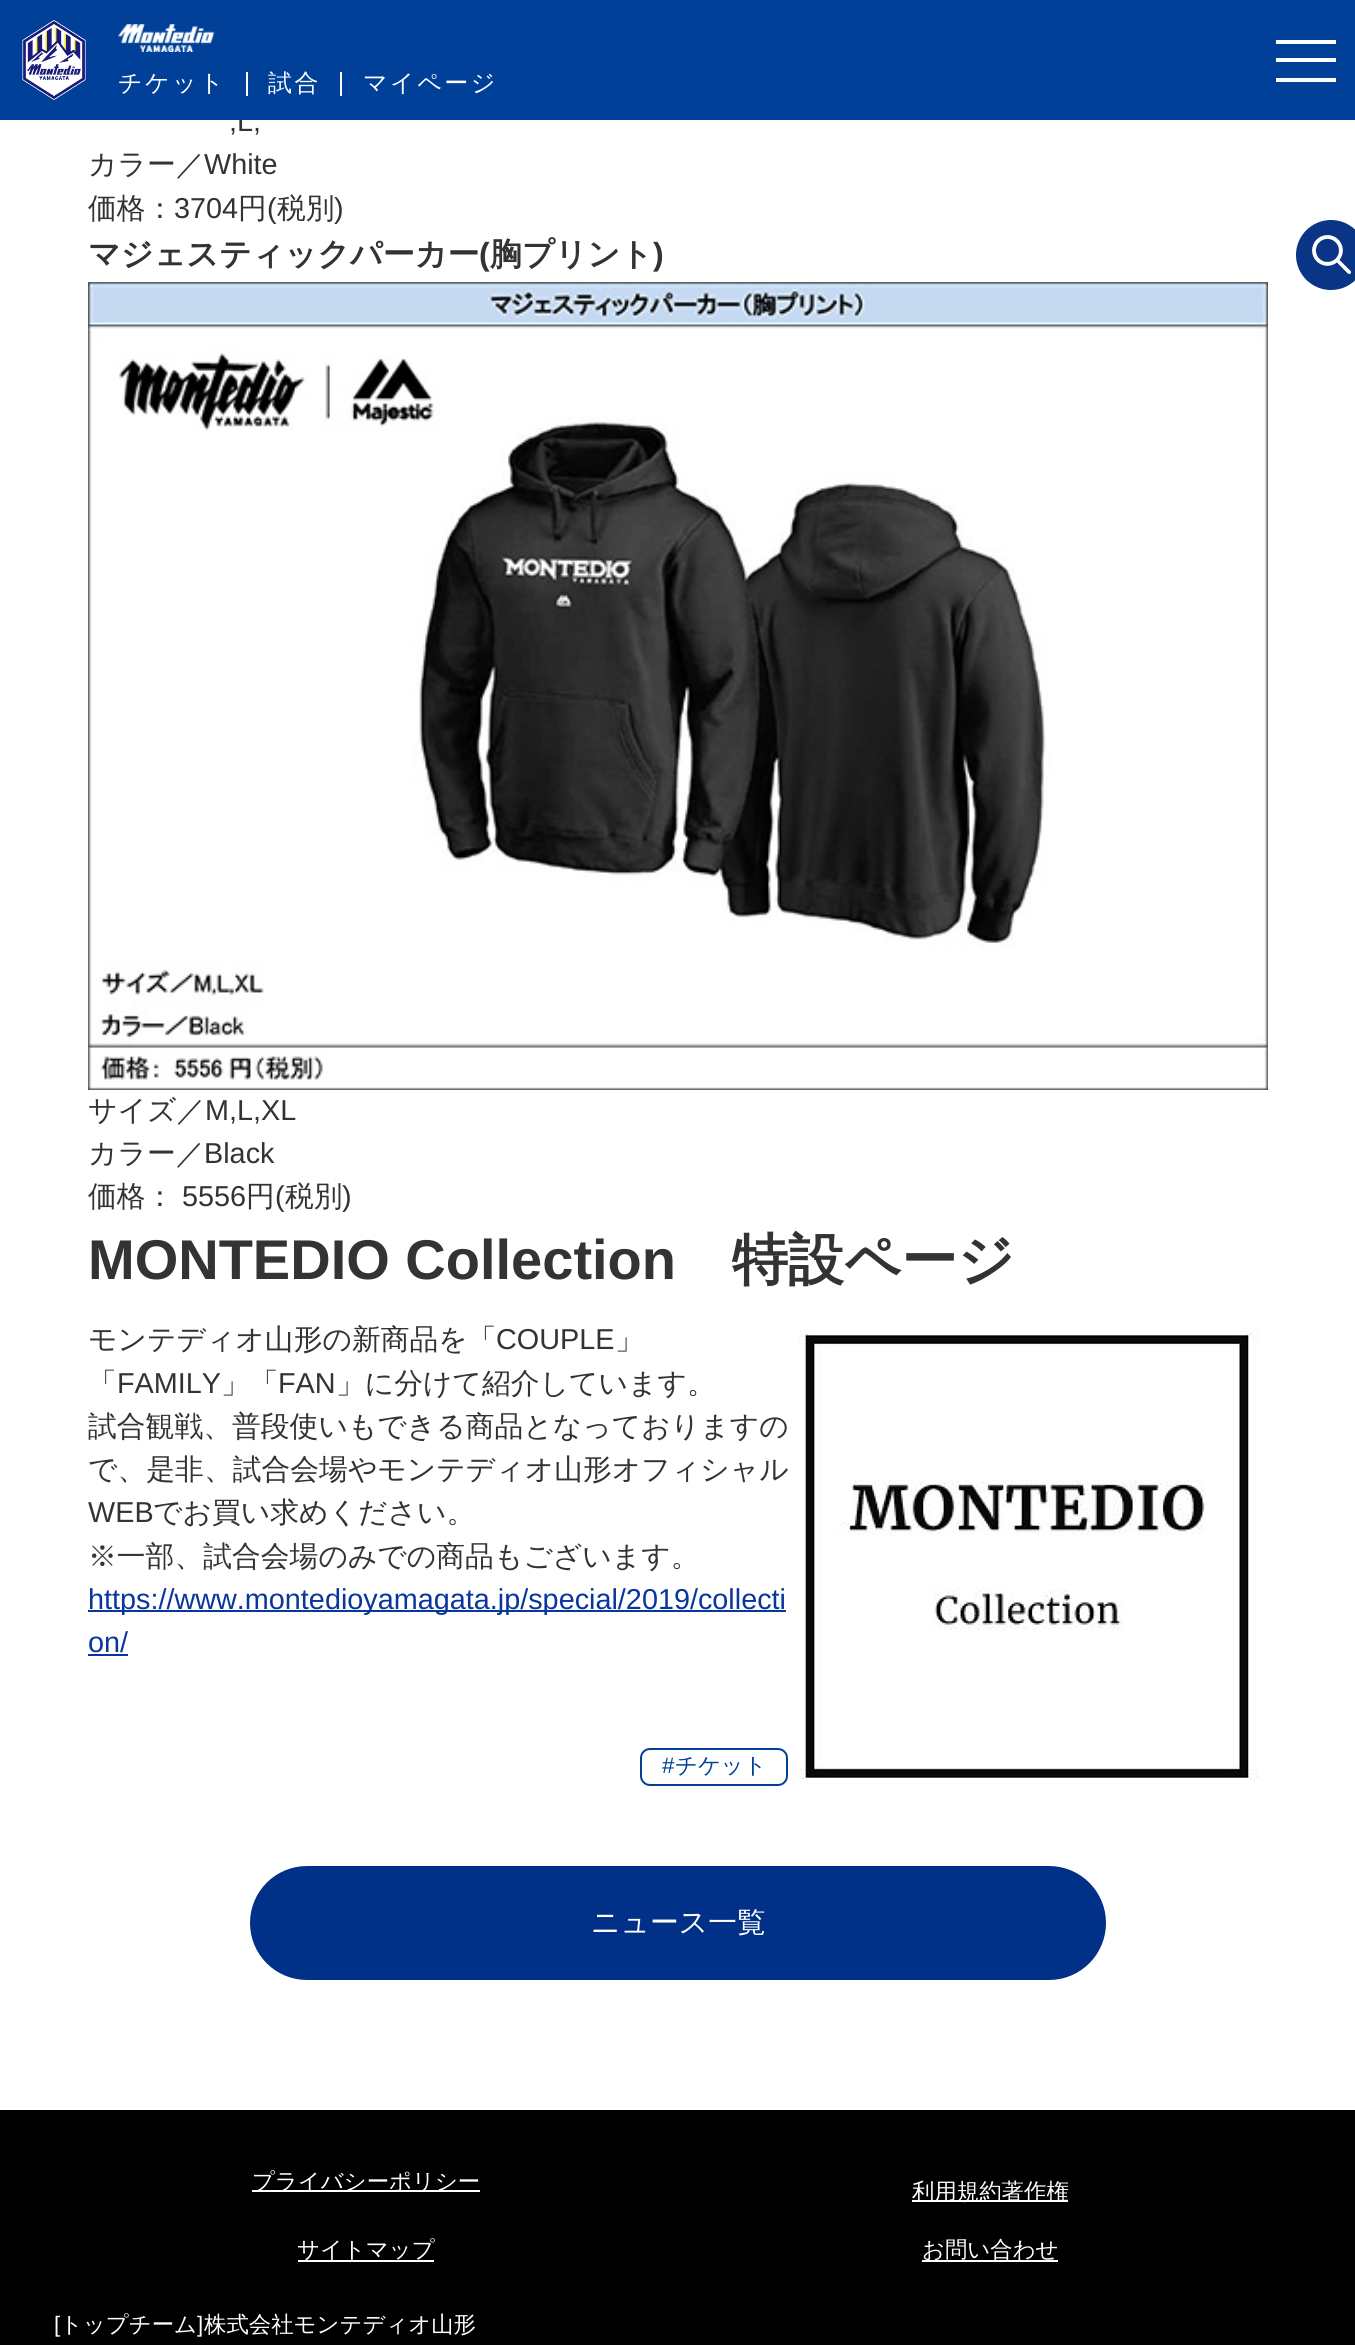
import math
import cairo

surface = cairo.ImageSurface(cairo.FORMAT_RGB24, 1355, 2345)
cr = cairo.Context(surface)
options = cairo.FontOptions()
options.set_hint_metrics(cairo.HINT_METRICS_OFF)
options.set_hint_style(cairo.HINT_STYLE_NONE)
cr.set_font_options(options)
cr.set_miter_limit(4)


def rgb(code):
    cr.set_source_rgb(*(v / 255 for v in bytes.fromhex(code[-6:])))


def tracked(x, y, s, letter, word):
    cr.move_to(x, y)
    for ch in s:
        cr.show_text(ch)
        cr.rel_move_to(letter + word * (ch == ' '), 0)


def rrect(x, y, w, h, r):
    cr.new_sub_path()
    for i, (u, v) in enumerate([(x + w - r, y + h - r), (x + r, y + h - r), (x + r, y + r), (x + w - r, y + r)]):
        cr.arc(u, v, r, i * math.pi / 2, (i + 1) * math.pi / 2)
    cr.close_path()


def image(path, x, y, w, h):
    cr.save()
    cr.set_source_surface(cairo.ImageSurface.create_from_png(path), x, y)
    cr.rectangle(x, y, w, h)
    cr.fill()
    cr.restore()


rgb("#ffffff")
cr.paint()
image("img/3.png", 88, 282, 1180, 808)
image("img/4.png", 797, 1330, 463, 450)
rgb("#09369d")
cr.rectangle(88, 1610, 698, 2)
cr.fill()
cr.rectangle(88, 1654, 40, 2)
cr.fill()
rrect(641, 1749, 146, 36, 9)
rgb("#014099")
cr.stroke()
rgb("#003087")
rrect(253, 1869, 850, 108, 54)
cr.fill_preserve()
cr.set_line_width(6)
cr.stroke()
image("img/5.png", 1296, 220, 59, 70)
for x, y, w, h, color in [
    (0, 2110, 1355, 235, "#000000"),
    (252, 2190, 228, 2, "#ffffff"),
    (912, 2200, 156, 2, "#ffffff"),
    (298, 2260, 136, 2, "#ffffff"),
    (922, 2260, 136, 2, "#ffffff"),
]:
    rgb(color)
    cr.rectangle(x, y, w, h)
    cr.fill()
cr.select_font_face("Liberation Sans")
cr.set_font_size(28.8)
rgb("#333333")
cr.move_to(229, 131)
cr.show_text(",L,")
for x, y, w, h, color in [
    (0, 0, 1355, 120, "#004098"),
    (1276, 78, 60, 4, "#ffffff"),
    (1276, 58, 60, 4, "#ffffff"),
    (1276, 40, 60, 4, "#ffffff"),
]:
    rgb(color)
    cr.rectangle(x, y, w, h)
    cr.fill()
cr.select_font_face("WenQuanYi Zen Hei Medium")
cr.set_font_size(24)
tracked(363, 91, "マイページ", 2.5, 0)
cr.rectangle(340, 72, 2, 24)
cr.fill()
tracked(268, 91, "試合", 2.5, 0)
cr.rectangle(246, 72, 2, 24)
cr.fill()
tracked(118, 91, "チケット", 2.5, 0)
image("img/2.png", 118, 24, 97, 28)
image("img/1.png", 22, 20, 64, 80)
cr.set_font_size(28.8)
rgb("#333333")
cr.move_to(88, 174)
cr.show_text("カラー／")
cr.select_font_face("Liberation Sans")
cr.move_to(204, 174)
cr.show_text("White")
cr.select_font_face("WenQuanYi Zen Hei Medium")
cr.move_to(88, 218)
cr.show_text("価格：")
cr.select_font_face("Liberation Sans")
cr.move_to(174, 218)
cr.show_text("3704")
cr.select_font_face("WenQuanYi Zen Hei Medium")
cr.move_to(238, 218)
cr.show_text("円")
cr.select_font_face("Liberation Sans")
cr.move_to(267, 218)
cr.show_text("(")
cr.select_font_face("WenQuanYi Zen Hei Medium")
cr.move_to(277, 218)
cr.show_text("税別")
cr.select_font_face("Liberation Sans")
cr.move_to(334, 218)
cr.show_text(")")
cr.select_font_face("WenQuanYi Zen Hei", cairo.FONT_SLANT_NORMAL, cairo.FONT_WEIGHT_BOLD)
cr.set_font_size(32)
cr.move_to(88, 265)
cr.show_text("マジェスティックパーカー")
cr.select_font_face("Liberation Sans", cairo.FONT_SLANT_NORMAL, cairo.FONT_WEIGHT_BOLD)
cr.move_to(479, 265)
cr.show_text("(")
cr.select_font_face("WenQuanYi Zen Hei", cairo.FONT_SLANT_NORMAL, cairo.FONT_WEIGHT_BOLD)
cr.move_to(490, 265)
cr.show_text("胸プリント")
cr.select_font_face("Liberation Sans", cairo.FONT_SLANT_NORMAL, cairo.FONT_WEIGHT_BOLD)
cr.move_to(653, 265)
cr.show_text(")")
cr.select_font_face("WenQuanYi Zen Hei Medium")
cr.set_font_size(28.8)
cr.move_to(88, 1120)
cr.show_text("サイズ／")
cr.select_font_face("Liberation Sans")
cr.move_to(205, 1120)
cr.show_text("M,L,XL")
cr.select_font_face("WenQuanYi Zen Hei Medium")
cr.move_to(88, 1163)
cr.show_text("カラー／")
cr.select_font_face("Liberation Sans")
cr.move_to(204, 1163)
cr.show_text("Black")
cr.select_font_face("WenQuanYi Zen Hei Medium")
cr.move_to(88, 1206)
cr.show_text("価格：")
cr.select_font_face("Liberation Sans")
cr.move_to(182, 1206)
cr.show_text("5556")
cr.select_font_face("WenQuanYi Zen Hei Medium")
cr.move_to(246, 1206)
cr.show_text("円")
cr.select_font_face("Liberation Sans")
cr.move_to(275, 1206)
cr.show_text("(")
cr.select_font_face("WenQuanYi Zen Hei Medium")
cr.move_to(285, 1206)
cr.show_text("税別")
cr.select_font_face("Liberation Sans")
cr.move_to(342, 1206)
cr.show_text(")")
cr.select_font_face("Liberation Sans", cairo.FONT_SLANT_NORMAL, cairo.FONT_WEIGHT_BOLD)
cr.set_font_size(56)
cr.move_to(88, 1279)
cr.show_text("MONTEDIO Collection")
cr.select_font_face("WenQuanYi Zen Hei", cairo.FONT_SLANT_NORMAL, cairo.FONT_WEIGHT_BOLD)
cr.move_to(732, 1279)
cr.show_text("特設ページ")
cr.select_font_face("WenQuanYi Zen Hei Medium")
cr.set_font_size(28.8)
cr.move_to(88, 1349)
cr.show_text("モンテディオ山形の新商品を「")
cr.select_font_face("Liberation Sans")
cr.move_to(496, 1349)
cr.show_text("COUPLE")
cr.select_font_face("WenQuanYi Zen Hei Medium")
cr.move_to(615, 1349)
cr.show_text("」")
cr.move_to(88, 1393)
cr.show_text("「")
cr.select_font_face("Liberation Sans")
cr.move_to(117, 1393)
cr.show_text("FAMILY")
cr.select_font_face("WenQuanYi Zen Hei Medium")
cr.move_to(221, 1393)
cr.show_text("」「")
cr.select_font_face("Liberation Sans")
cr.move_to(278, 1393)
cr.show_text("FAN")
cr.select_font_face("WenQuanYi Zen Hei Medium")
for x, y, s in [
    (336, 1393, "」に分けて紹介しています。"),
    (88, 1436, "試合観戦、普段使いもできる商品となっておりますの"),
    (88, 1479, "で、是非、試合会場やモンテディオ山形オフィシャル"),
]:
    cr.move_to(x, y)
    cr.show_text(s)
cr.select_font_face("Liberation Sans")
cr.move_to(88, 1522)
cr.show_text("WEB")
cr.select_font_face("WenQuanYi Zen Hei Medium")
cr.move_to(153, 1522)
cr.show_text("でお買い求めください。")
cr.move_to(88, 1566)
cr.show_text("※一部、試合会場のみでの商品もございます。")
cr.select_font_face("Liberation Sans")
rgb("#09369d")
cr.move_to(88, 1609)
cr.show_text("https://www.montedioyamagata.jp/special/2019/collecti")
cr.move_to(88, 1652)
cr.show_text("on/")
cr.set_font_size(22.4)
rgb("#014099")
cr.move_to(662, 1773)
cr.show_text("#")
cr.select_font_face("WenQuanYi Zen Hei Medium")
cr.move_to(675, 1773)
cr.show_text("チケット")
cr.set_font_size(28.8)
rgb("#ffffff")
cr.move_to(591, 1932)
cr.show_text("ニュース一覧")
cr.set_font_size(22.4)
for x, y, s in [
    (252, 2189, "プライバシーポリシー"),
    (912, 2199, "利用規約著作権"),
    (297, 2257, "サイトマップ"),
    (922, 2257, "お問い合わせ"),
]:
    cr.move_to(x, y)
    cr.show_text(s)
cr.select_font_face("Liberation Sans")
cr.move_to(54, 2332)
cr.show_text("[")
cr.select_font_face("WenQuanYi Zen Hei Medium")
cr.move_to(60, 2332)
cr.show_text("トップチーム")
cr.select_font_face("Liberation Sans")
cr.move_to(197, 2332)
cr.show_text("]")
cr.select_font_face("WenQuanYi Zen Hei Medium")
cr.move_to(204, 2332)
cr.show_text("株式会社モンテディオ山形")
surface.write_to_png("page.png")
